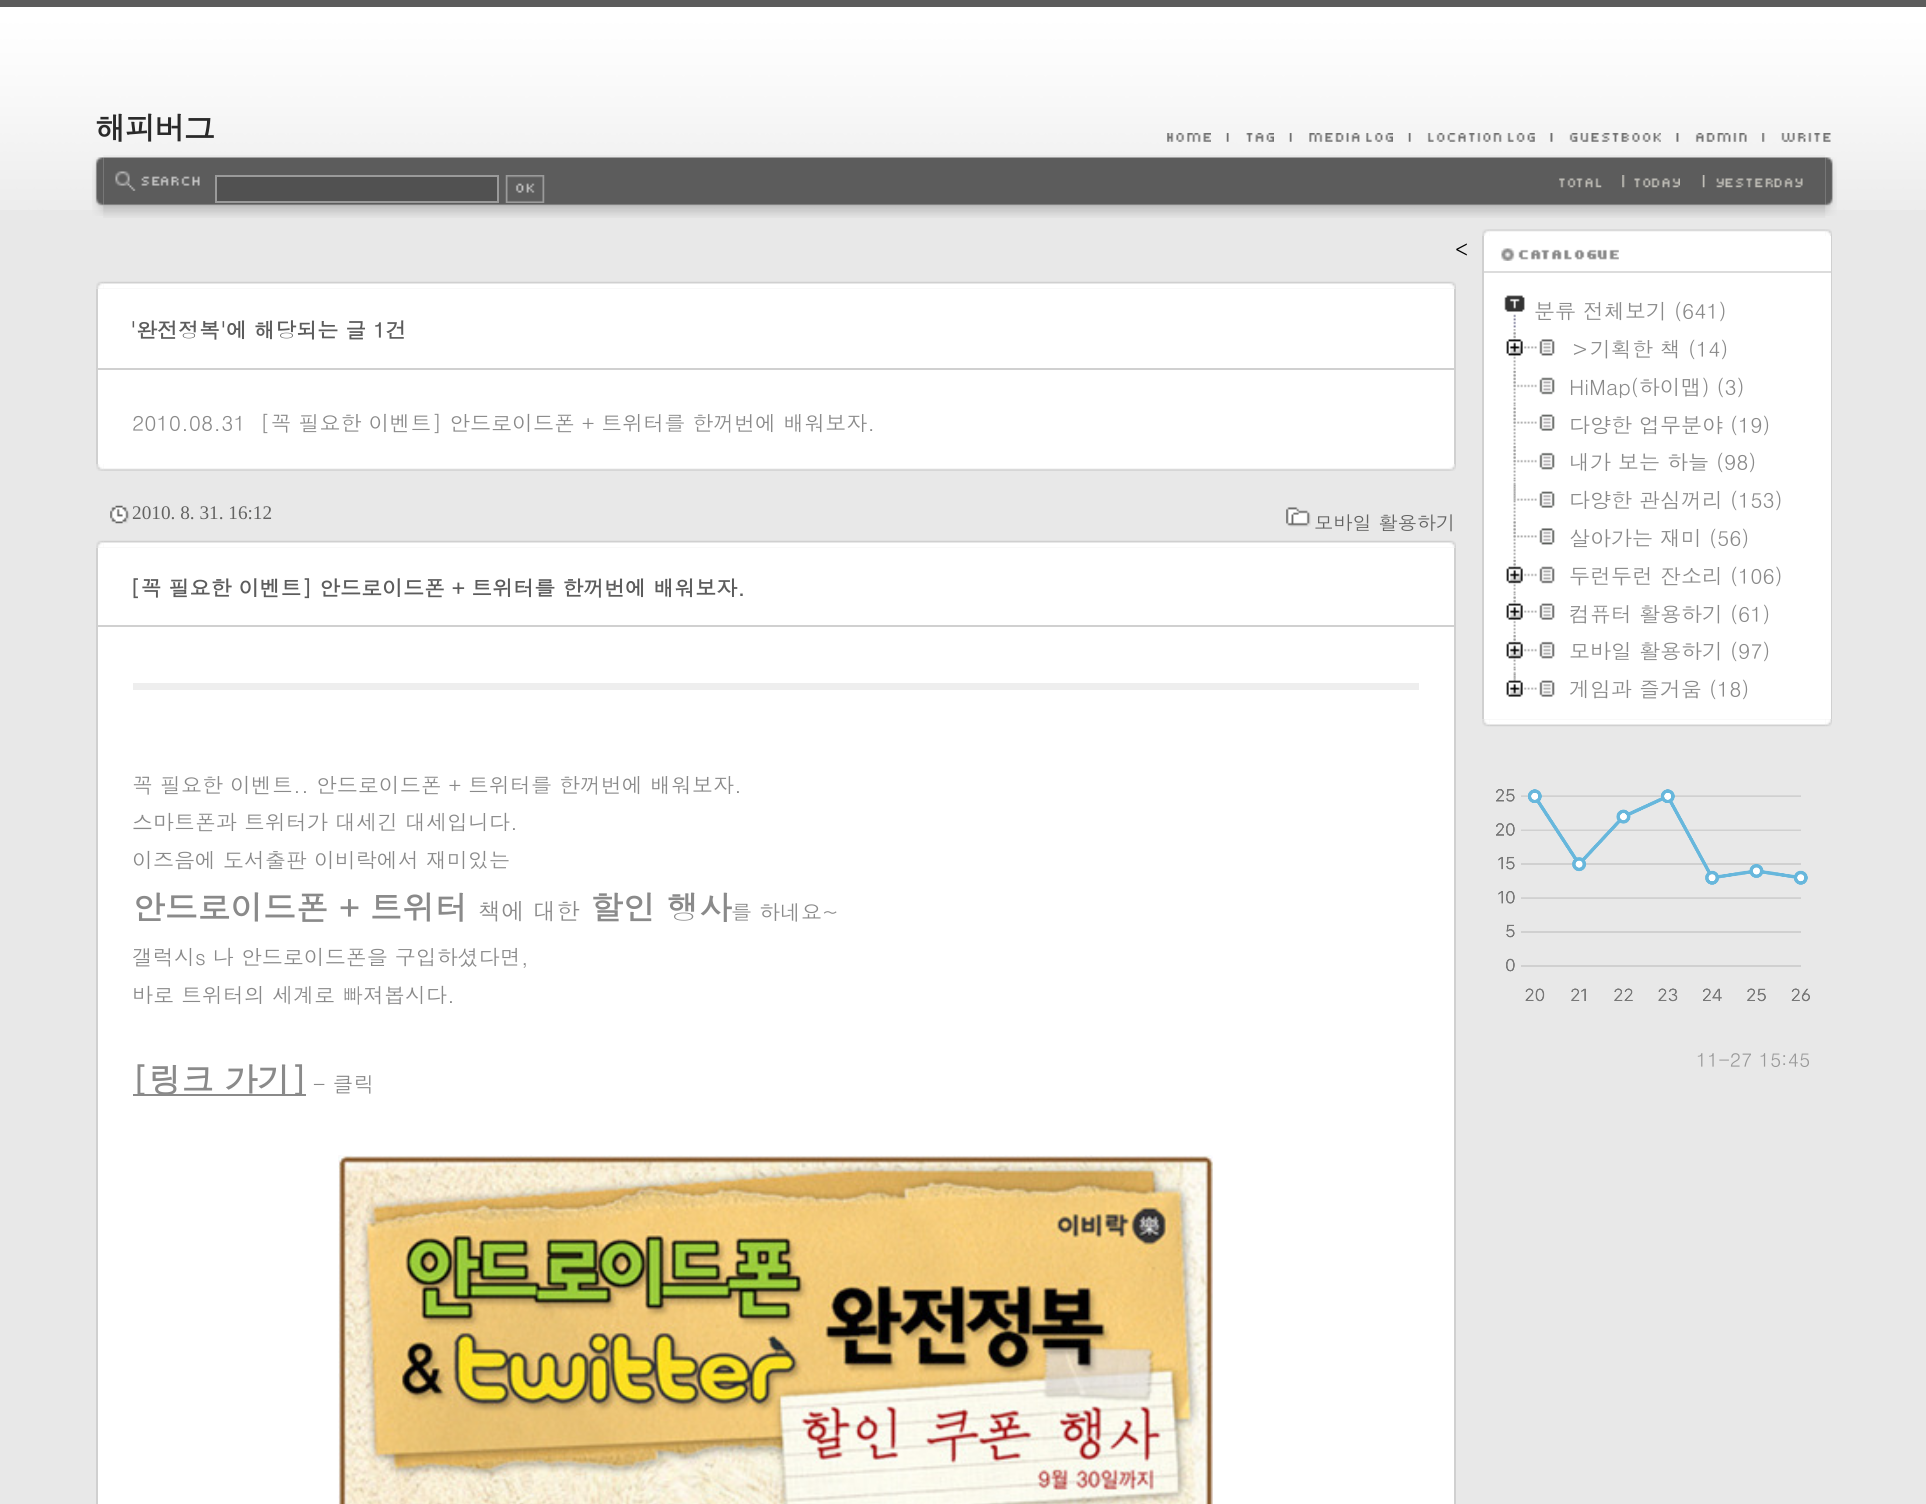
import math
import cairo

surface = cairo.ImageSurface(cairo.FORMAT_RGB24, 1926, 1504)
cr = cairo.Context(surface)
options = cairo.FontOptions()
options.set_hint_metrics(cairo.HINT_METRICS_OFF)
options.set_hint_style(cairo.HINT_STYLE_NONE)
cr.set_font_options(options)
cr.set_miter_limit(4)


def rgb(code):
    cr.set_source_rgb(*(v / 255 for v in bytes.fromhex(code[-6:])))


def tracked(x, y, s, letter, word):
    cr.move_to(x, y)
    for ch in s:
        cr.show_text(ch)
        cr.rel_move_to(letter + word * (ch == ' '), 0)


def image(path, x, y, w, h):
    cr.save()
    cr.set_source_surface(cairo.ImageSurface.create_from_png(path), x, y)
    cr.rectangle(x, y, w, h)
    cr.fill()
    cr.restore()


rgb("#e8e8e8")
cr.paint()
rgb("#5c5c5c")
cr.rectangle(0, 0, 1926, 7)
cr.fill()
image("img/1.png", 0, 7, 1926, 203)
image("img/2.png", 1167, 133, 44, 9)
image("img/3.png", 1226, 133, 48, 9)
image("img/4.png", 1289, 133, 104, 9)
image("img/5.png", 1408, 133, 127, 9)
image("img/6.png", 1550, 133, 111, 9)
image("img/7.png", 1676, 133, 71, 9)
image("img/8.png", 1762, 133, 69, 9)
image("img/9.png", 92, 157, 12, 59)
image("img/10.png", 103, 155, 1723, 63)
image("img/11.png", 115, 171, 85, 20)
rgb("#515151")
cr.rectangle(216, 176, 282, 26)
cr.fill_preserve()
rgb("#9a9a9a")
cr.stroke()
image("img/12.png", 505, 175, 40, 28)
image("img/13.png", 1559, 178, 43, 10)
image("img/14.png", 1622, 175, 58, 13)
image("img/15.png", 1702, 175, 101, 13)
image("img/16.png", 1825, 157, 12, 59)
image("img/17.png", 96, 281, 8, 8)
image("img/18.png", 103, 281, 1346, 8)
image("img/19.png", 1449, 281, 7, 8)
for x, y, w, h, color in [
    (98, 289, 1356, 175, "#ffffff"),
    (1454, 289, 2, 175, "#d0d0d0"),
    (96, 289, 2, 175, "#d0d0d0"),
    (98, 368, 1356, 2, "#d0d0d0"),
]:
    rgb(color)
    cr.rectangle(x, y, w, h)
    cr.fill()
image("img/20.png", 96, 464, 8, 7)
image("img/21.png", 103, 464, 1346, 7)
image("img/22.png", 1449, 464, 7, 7)
image("img/23.png", 110, 505, 20, 19)
image("img/24.png", 1286, 507, 25, 20)
image("img/17.png", 96, 540, 8, 8)
image("img/18.png", 103, 540, 1346, 8)
image("img/19.png", 1449, 540, 7, 8)
for x, y, w, h, color in [
    (98, 548, 1356, 956, "#ffffff"),
    (1454, 548, 2, 956, "#d0d0d0"),
    (96, 548, 2, 956, "#d0d0d0"),
    (98, 625, 1356, 2, "#d0d0d0"),
    (133, 683, 1286, 7, "#eeeeee"),
    (133, 1094, 173, 2, "#8a8a8a"),
]:
    rgb(color)
    cr.rectangle(x, y, w, h)
    cr.fill()
image("img/25.png", 338, 1155, 875, 349)
image("img/26.png", 1482, 229, 8, 7)
image("img/27.png", 1489, 229, 337, 7)
image("img/28.png", 1825, 229, 7, 7)
for x, y, w, h, color in [
    (1484, 236, 347, 483, "#ffffff"),
    (1831, 236, 1, 483, "#d0d0d0"),
    (1482, 236, 2, 483, "#d0d0d0"),
]:
    rgb(color)
    cr.rectangle(x, y, w, h)
    cr.fill()
image("img/29.png", 1501, 248, 118, 13)
rgb("#dcdcdc")
cr.rectangle(1484, 271, 347, 2)
cr.fill()
image("img/30.png", 1504, 295, 21, 33)
image("img/31.png", 1513, 329, 3, 39)
image("img/32.png", 1506, 332, 49, 24)
image("img/33.png", 1513, 367, 3, 38)
image("img/34.png", 1513, 371, 42, 24)
image("img/35.png", 1513, 404, 3, 39)
image("img/36.png", 1513, 407, 42, 24)
image("img/37.png", 1513, 442, 3, 38)
image("img/38.png", 1513, 446, 42, 24)
image("img/39.png", 1513, 479, 3, 39)
image("img/40.png", 1513, 484, 42, 24)
image("img/31.png", 1513, 518, 3, 39)
image("img/41.png", 1513, 521, 42, 24)
image("img/33.png", 1513, 556, 3, 38)
image("img/42.png", 1506, 560, 49, 24)
image("img/35.png", 1513, 593, 3, 39)
image("img/43.png", 1506, 596, 49, 24)
image("img/37.png", 1513, 631, 3, 38)
image("img/44.png", 1506, 635, 49, 24)
image("img/45.png", 1513, 668, 3, 14)
image("img/46.png", 1506, 673, 49, 24)
image("img/47.png", 1482, 719, 8, 8)
image("img/48.png", 1489, 719, 337, 8)
image("img/49.png", 1825, 719, 7, 8)
image("img/50.png", 1496, 789, 314, 213)
cr.select_font_face("Dotum", cairo.FONT_SLANT_NORMAL, cairo.FONT_WEIGHT_BOLD)
cr.set_font_size(31.5)
rgb("#2a2a2a")
tracked(95, 140, "해피버그", -2, 0)
cr.select_font_face("Dotum")
cr.set_font_size(21)
rgb("#000000")
cr.move_to(1455, 257)
cr.show_text("<")
cr.select_font_face("Dotum", cairo.FONT_SLANT_NORMAL, cairo.FONT_WEIGHT_BOLD)
rgb("#5c5c5c")
cr.move_to(130, 338)
cr.show_text("'완전정복'에 해당되는 글 1건")
cr.select_font_face("Dotum")
rgb("#8a8a8a")
cr.move_to(132, 431)
cr.show_text("2010.08.31")
cr.move_to(260, 431)
cr.show_text("[꼭 필요한 이벤트] 안드로이드폰 + 트위터를 한꺼번에 배워보자.")
cr.select_font_face("Liberation Serif")
cr.set_font_size(19.25)
rgb("#636362")
cr.move_to(132, 519)
cr.show_text("2010. 8. 31. 16:12")
cr.select_font_face("Dotum")
cr.move_to(1314, 530)
cr.show_text("모바일 활용하기")
cr.select_font_face("Dotum", cairo.FONT_SLANT_NORMAL, cairo.FONT_WEIGHT_BOLD)
cr.set_font_size(21)
rgb("#5c5c5c")
cr.move_to(130, 596)
cr.show_text("[꼭 필요한 이벤트] 안드로이드폰 + 트위터를 한꺼번에 배워보자.")
cr.select_font_face("Dotum")
rgb("#8a8a8a")
for x, y, s in [
    (132, 793, "꼭 필요한 이벤트.. 안드로이드폰 + 트위터를 한꺼번에 배워보자."),
    (132, 830, "스마트폰과 트위터가 대세긴 대세입니다."),
    (132, 868, "이즈음에 도서출판 이비락에서 재미있는"),
]:
    cr.move_to(x, y)
    cr.show_text(s)
cr.select_font_face("Dotum", cairo.FONT_SLANT_NORMAL, cairo.FONT_WEIGHT_BOLD)
cr.set_font_size(32.75)
cr.move_to(132, 920)
cr.show_text("안드로이드폰 + 트위터")
cr.select_font_face("Dotum")
cr.set_font_size(23.5)
cr.move_to(478, 920)
cr.show_text("책에 대한")
cr.select_font_face("Dotum", cairo.FONT_SLANT_NORMAL, cairo.FONT_WEIGHT_BOLD)
cr.set_font_size(32.75)
cr.move_to(590, 920)
cr.show_text("할인 행사")
cr.select_font_face("Dotum")
cr.set_font_size(21)
for x, y, s in [
    (731, 920, "를 하네요~"),
    (132, 965, "갤럭시s 나 안드로이드폰을 구입하셨다면,"),
    (132, 1003, "바로 트위터의 세계로 빠져봅시다."),
]:
    cr.move_to(x, y)
    cr.show_text(s)
cr.select_font_face("Dotum", cairo.FONT_SLANT_NORMAL, cairo.FONT_WEIGHT_BOLD)
cr.set_font_size(32.75)
cr.move_to(132, 1092)
cr.show_text("[링크 가기]")
cr.select_font_face("Dotum")
cr.set_font_size(21)
for x, y, s in [
    (313, 1092, "- 클릭"),
    (1534, 319, "분류 전체보기 (641)"),
    (1569, 357, "＞기획한 책 (14)"),
    (1569, 395, "HiMap(하이맵) (3)"),
    (1569, 433, "다양한 업무분야 (19)"),
    (1569, 470, "내가 보는 하늘 (98)"),
    (1569, 508, "다양한 관심꺼리 (153)"),
    (1569, 546, "살아가는 재미 (56)"),
    (1569, 584, "두런두런 잔소리 (106)"),
    (1569, 622, "컴퓨터 활용하기 (61)"),
    (1569, 659, "모바일 활용하기 (97)"),
    (1569, 697, "게임과 즐거움 (18)"),
]:
    cr.move_to(x, y)
    cr.show_text(s)
cr.set_font_size(19.25)
rgb("#999999")
cr.move_to(1696, 1067)
cr.show_text("11-27 15:45")
surface.write_to_png("page.png")
